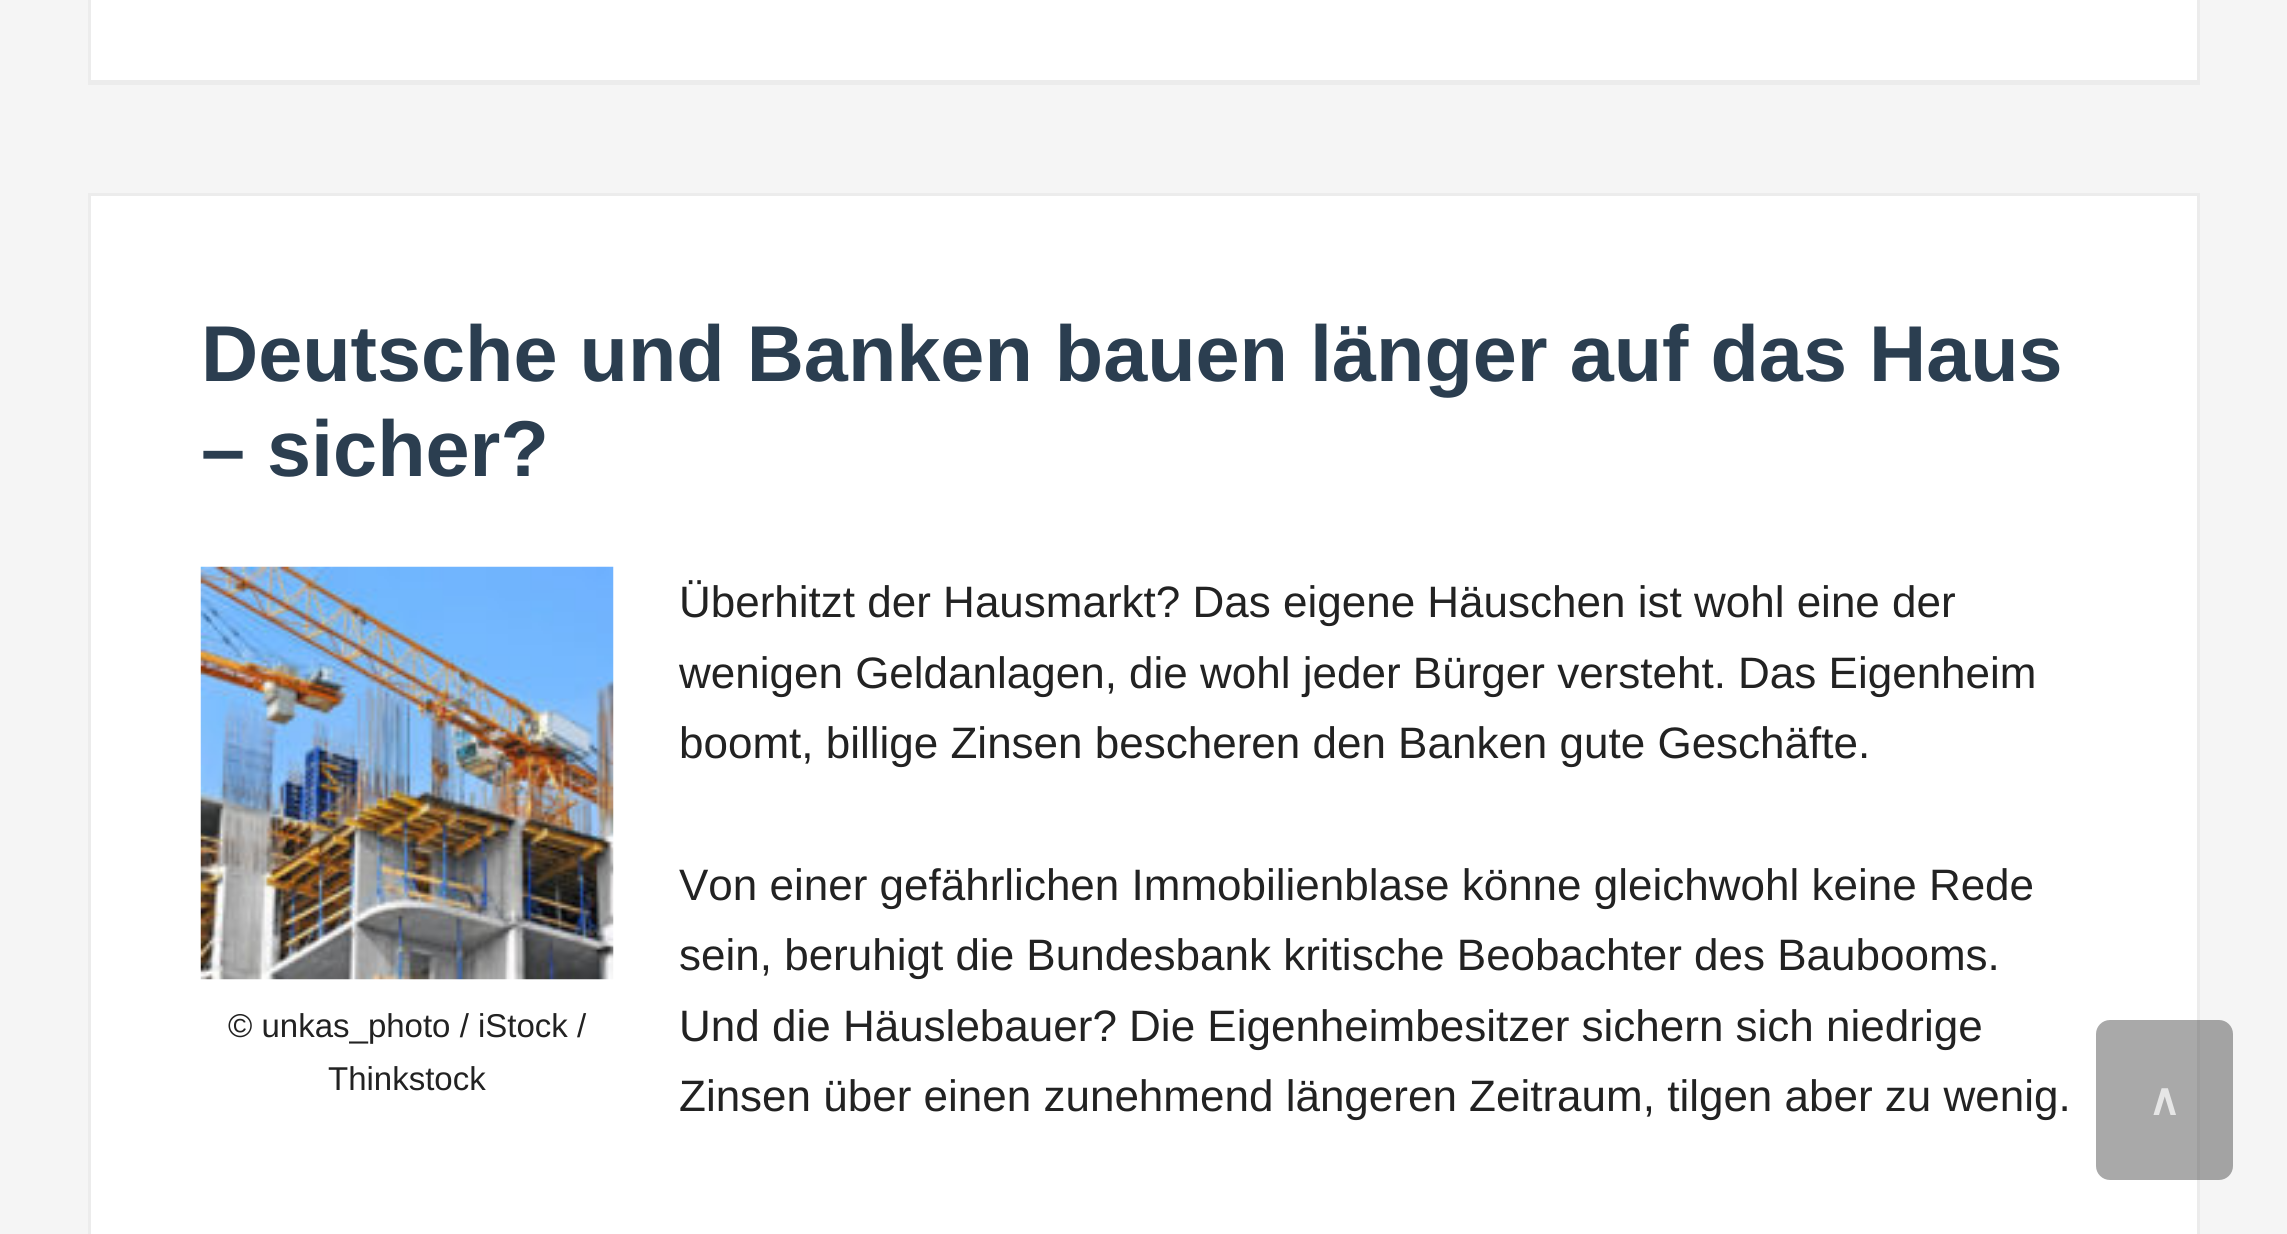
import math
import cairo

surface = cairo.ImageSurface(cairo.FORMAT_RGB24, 2287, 1234)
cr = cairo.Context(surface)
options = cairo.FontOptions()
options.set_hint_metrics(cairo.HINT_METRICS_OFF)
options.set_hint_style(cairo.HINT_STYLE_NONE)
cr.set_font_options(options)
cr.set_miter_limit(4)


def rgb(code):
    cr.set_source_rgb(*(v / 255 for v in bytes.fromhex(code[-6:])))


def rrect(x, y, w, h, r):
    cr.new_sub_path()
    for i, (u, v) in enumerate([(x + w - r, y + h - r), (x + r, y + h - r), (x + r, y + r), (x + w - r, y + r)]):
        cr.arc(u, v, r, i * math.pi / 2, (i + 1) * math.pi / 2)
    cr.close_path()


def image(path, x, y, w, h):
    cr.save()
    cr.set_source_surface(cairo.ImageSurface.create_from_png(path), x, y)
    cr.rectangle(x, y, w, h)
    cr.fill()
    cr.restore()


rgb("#f5f5f5")
cr.paint()
rgb("#ececec")
cr.rectangle(88, 83, 2112, 2)
cr.fill()
rgb("#ffffff")
cr.rectangle(89.5, -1.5, 2109, 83)
cr.fill_preserve()
rgb("#ececec")
cr.set_line_width(3)
cr.stroke()
rgb("#ffffff")
cr.rectangle(89.5, 194.5, 2109, 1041)
cr.fill_preserve()
rgb("#ececec")
cr.stroke()
image("img/1.png", 200, 566, 414, 414)
cr.set_source_rgba(0.157, 0.157, 0.157, 0.4)
rrect(2096, 1020, 137, 160, 14)
cr.fill()
cr.select_font_face("Liberation Sans", cairo.FONT_SLANT_NORMAL, cairo.FONT_WEIGHT_BOLD)
cr.set_font_size(79.2)
rgb("#2b3e50")
cr.move_to(201, 381)
cr.show_text("Deutsche und Banken bauen länger auf das Haus")
cr.move_to(201, 476)
cr.show_text("– sicher?")
cr.select_font_face("Liberation Sans")
cr.set_font_size(44)
rgb("#222222")
for x, y, s in [
    (679, 617, "Überhitzt der Hausmarkt? Das eigene Häuschen ist wohl eine der"),
    (679, 688, "wenigen Geldanlagen, die wohl jeder Bürger versteht. Das Eigenheim"),
    (679, 758, "boomt, billige Zinsen bescheren den Banken gute Geschäfte."),
]:
    cr.move_to(x, y)
    cr.show_text(s)
cr.set_font_size(33)
cr.move_to(228, 1037)
cr.show_text("© unkas_photo / iStock /")
cr.move_to(328, 1090)
cr.show_text("Thinkstock")
cr.set_font_size(44)
for x, y, s in [
    (679, 900, "Von einer gefährlichen Immobilienblase könne gleichwohl keine Rede"),
    (679, 970, "sein, beruhigt die Bundesbank kritische Beobachter des Baubooms."),
    (679, 1041, "Und die Häuslebauer? Die Eigenheimbesitzer sichern sich niedrige"),
    (679, 1111, "Zinsen über einen zunehmend längeren Zeitraum, tilgen aber zu wenig."),
]:
    cr.move_to(x, y)
    cr.show_text(s)
cr.select_font_face("DejaVu Sans", cairo.FONT_SLANT_NORMAL, cairo.FONT_WEIGHT_BOLD)
rgb("#e6e6e6")
cr.move_to(2148, 1115)
cr.show_text("∧")
surface.write_to_png("page.png")
